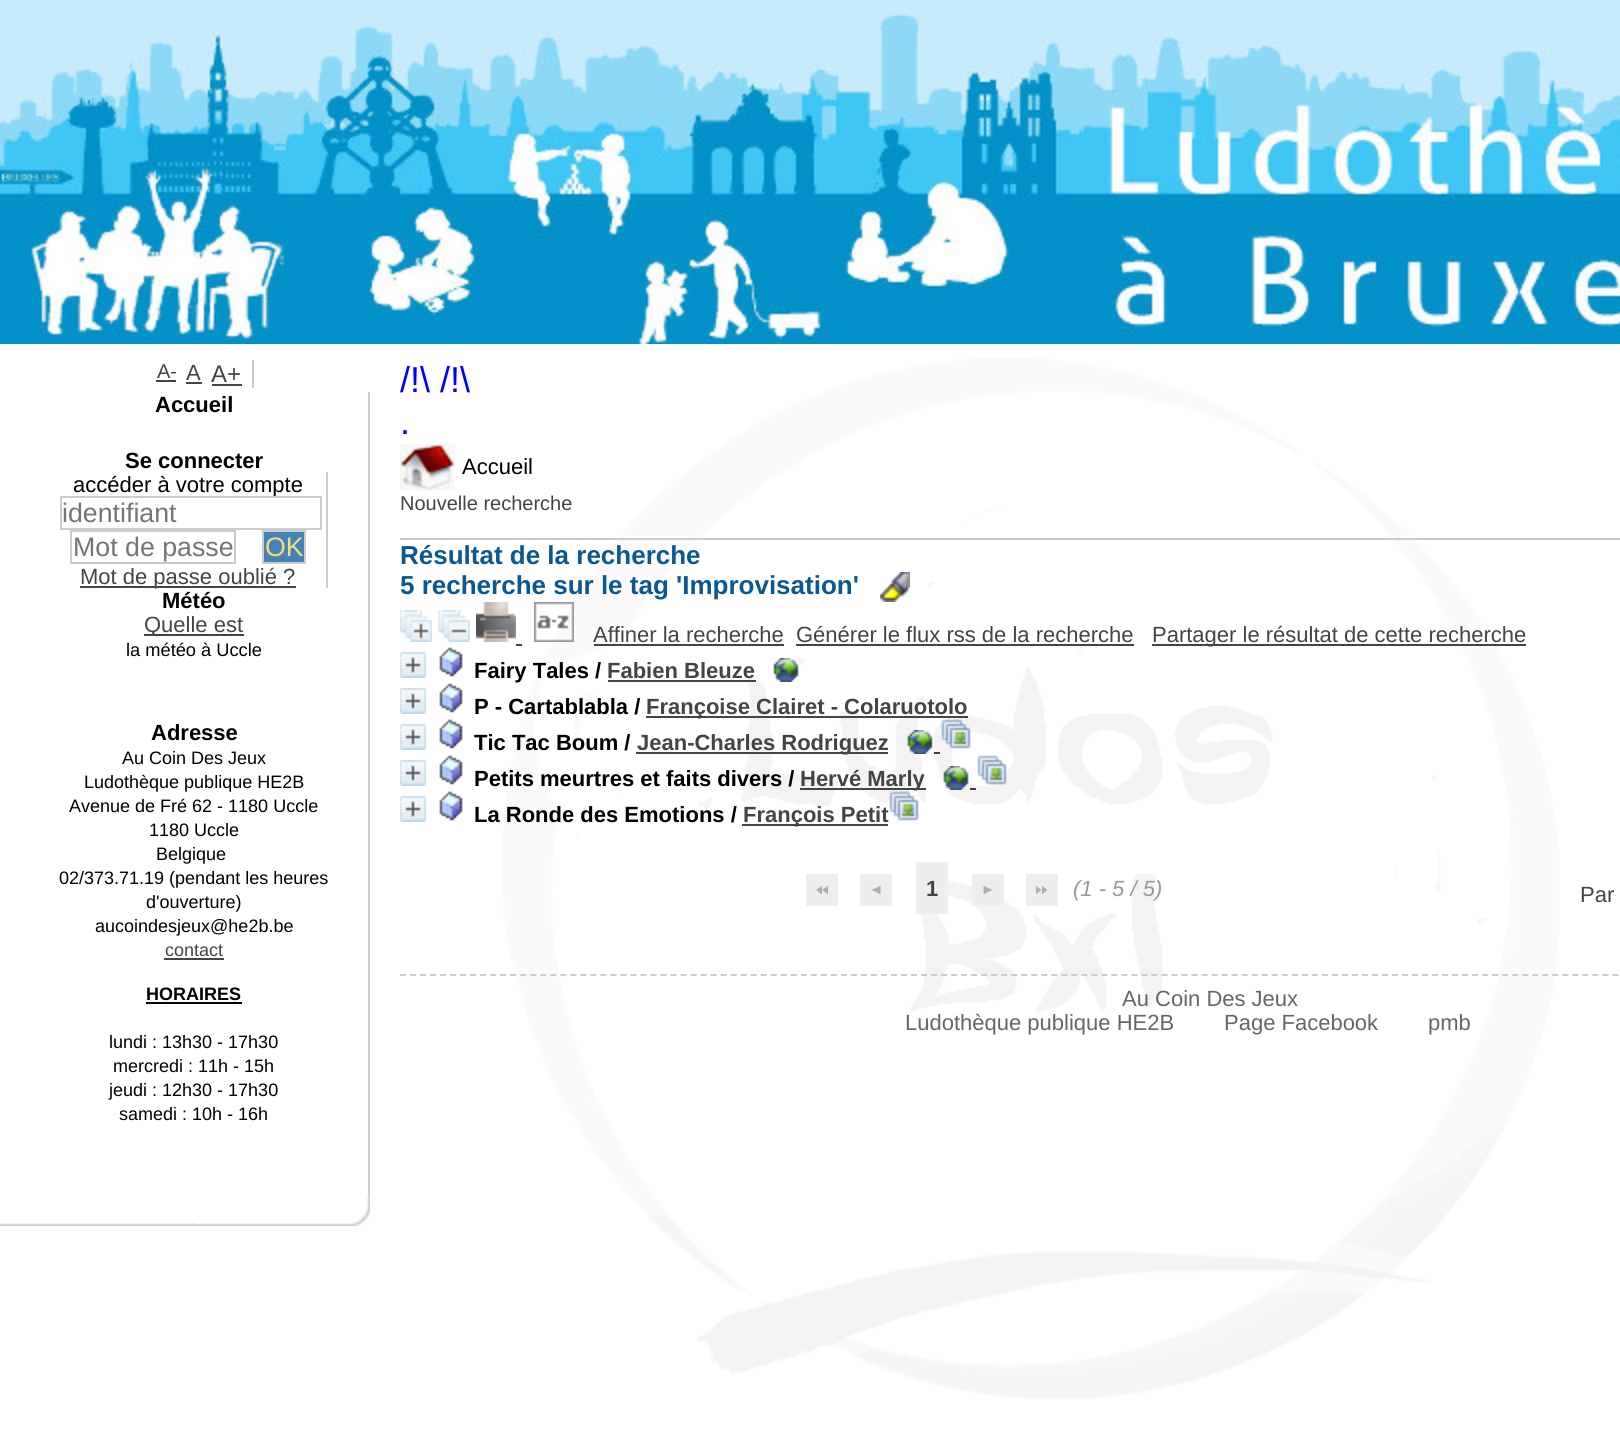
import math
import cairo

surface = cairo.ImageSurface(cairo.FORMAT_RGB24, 1620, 1441)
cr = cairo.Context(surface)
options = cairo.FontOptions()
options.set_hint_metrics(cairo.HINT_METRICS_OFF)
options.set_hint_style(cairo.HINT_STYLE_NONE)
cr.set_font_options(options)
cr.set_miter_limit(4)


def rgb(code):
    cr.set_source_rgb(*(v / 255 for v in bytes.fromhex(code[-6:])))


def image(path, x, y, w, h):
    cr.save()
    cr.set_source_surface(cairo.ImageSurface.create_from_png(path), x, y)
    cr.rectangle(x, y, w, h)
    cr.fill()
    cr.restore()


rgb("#ffffff")
cr.paint()
image("img/1.png", 0, 1196, 370, 30)
for x, y, w, h, color in [
    (252, 360, 2, 28, "#cccccc"),
    (156, 380, 20, 2, "#444444"),
    (186, 382, 16, 2, "#444444"),
    (212, 384, 30, 2, "#444444"),
    (368, 392, 2, 804, "#cccccc"),
    (326, 472, 2, 116, "#cccccc"),
]:
    rgb(color)
    cr.rectangle(x, y, w, h)
    cr.fill()
cr.rectangle(71, 531, 164, 32)
cr.stroke()
rgb("#4682b4")
cr.rectangle(263, 531, 42, 32)
cr.fill_preserve()
rgb("#cccccc")
cr.stroke()
for x, y, w, h, color in [
    (80, 586, 216, 2, "#444444"),
    (144, 634, 100, 2, "#444444"),
    (164, 958, 60, 2, "#444444"),
    (146, 1002, 96, 2, "#000000"),
]:
    rgb(color)
    cr.rectangle(x, y, w, h)
    cr.fill()
image("img/2.png", 502, 358, 1058, 1042)
image("img/3.png", 0, 0, 1620, 344)
image("img/4.png", 400, 444, 56, 47)
rgb("#cccccc")
cr.rectangle(400, 538, 1220, 2)
cr.fill()
image("img/5.png", 880, 572, 30, 30)
image("img/6.png", 400, 610, 32, 32)
image("img/7.png", 438, 610, 32, 32)
image("img/8.png", 476, 602, 40, 40)
image("img/9.png", 534, 602, 40, 40)
for x, y, w, h, color in [
    (594, 644, 190, 2, "#444444"),
    (796, 644, 338, 2, "#444444"),
    (1152, 644, 374, 2, "#444444"),
    (516, 644, 6, 2, "#444444"),
]:
    rgb(color)
    cr.rectangle(x, y, w, h)
    cr.fill()
image("img/10.png", 400, 652, 26, 26)
image("img/11.png", 439, 647, 24, 30)
cr.rectangle(608, 680, 148, 2)
cr.fill()
image("img/12.png", 773, 658, 26, 24)
image("img/10.png", 400, 688, 26, 26)
image("img/11.png", 439, 683, 24, 30)
cr.rectangle(646, 716, 322, 2)
cr.fill()
image("img/10.png", 400, 724, 26, 26)
image("img/11.png", 439, 719, 24, 30)
cr.rectangle(636, 752, 252, 2)
cr.fill()
image("img/13.png", 907, 730, 26, 24)
cr.rectangle(934, 752, 6, 2)
cr.fill()
image("img/14.png", 941, 719, 30, 30)
image("img/10.png", 400, 760, 26, 26)
image("img/11.png", 439, 755, 24, 30)
cr.rectangle(800, 788, 126, 2)
cr.fill()
image("img/15.png", 943, 766, 26, 24)
image("img/16.png", 977, 755, 30, 30)
cr.rectangle(970, 788, 6, 2)
cr.fill()
image("img/10.png", 400, 796, 26, 26)
image("img/11.png", 439, 791, 24, 30)
cr.rectangle(742, 824, 146, 2)
cr.fill()
image("img/17.png", 889, 791, 30, 30)
rgb("#eeeeee")
cr.rectangle(806, 874, 32, 32)
cr.fill()
image("img/18.png", 816, 885, 12, 10)
cr.rectangle(860, 874, 32, 32)
cr.fill()
image("img/19.png", 872, 885, 9, 10)
cr.rectangle(916, 862, 32, 52)
cr.fill()
cr.rectangle(972, 874, 32, 32)
cr.fill()
image("img/20.png", 983, 885, 9, 10)
cr.rectangle(1026, 874, 32, 32)
cr.fill()
image("img/21.png", 1036, 885, 12, 10)
cr.new_path()
cr.move_to(400, 975)
cr.line_to(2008, 975)
rgb("#cccccc")
cr.set_dash([6, 4.02])
cr.stroke()
cr.select_font_face("Liberation Sans")
cr.set_font_size(20)
rgb("#444444")
cr.move_to(157, 378)
cr.show_text("A-")
cr.set_font_size(22)
cr.move_to(186, 380)
cr.show_text("A")
cr.set_font_size(24)
cr.move_to(211, 382)
cr.show_text("A+")
cr.select_font_face("Liberation Sans", cairo.FONT_SLANT_NORMAL, cairo.FONT_WEIGHT_BOLD)
cr.set_font_size(22)
rgb("#000000")
cr.move_to(155, 412)
cr.show_text("Accueil")
cr.move_to(125, 468)
cr.show_text("Se connecter")
cr.select_font_face("Liberation Sans")
cr.move_to(73, 492)
cr.show_text("accéder à votre compte")
cr.rectangle(61, 497, 260, 32)
rgb("#cccccc")
cr.set_dash([])
cr.stroke()
cr.set_font_size(26.75)
rgb("#757575")
cr.move_to(62, 522)
cr.show_text("identifiant")
cr.move_to(73, 556)
cr.show_text("Mot de passe")
rgb("#eedd82")
cr.move_to(265, 556)
cr.show_text("OK")
cr.set_font_size(22)
rgb("#444444")
cr.move_to(80, 584)
cr.show_text("Mot de passe oublié ?")
cr.select_font_face("Liberation Sans", cairo.FONT_SLANT_NORMAL, cairo.FONT_WEIGHT_BOLD)
rgb("#000000")
cr.move_to(162, 608)
cr.show_text("Météo")
cr.select_font_face("Liberation Sans")
rgb("#444444")
cr.move_to(144, 632)
cr.show_text("Quelle est")
cr.set_font_size(18.25)
rgb("#000000")
cr.move_to(126, 656)
cr.show_text("la météo à Uccle")
cr.select_font_face("Liberation Sans", cairo.FONT_SLANT_NORMAL, cairo.FONT_WEIGHT_BOLD)
cr.set_font_size(22)
cr.move_to(151, 740)
cr.show_text("Adresse")
cr.select_font_face("Liberation Sans")
cr.set_font_size(18)
for x, y, s in [
    (122, 764, "Au Coin Des Jeux"),
    (84, 788, "Ludothèque publique HE2B"),
    (69, 812, "Avenue de Fré 62 - 1180 Uccle"),
    (149, 836, "1180 Uccle"),
    (156, 860, "Belgique"),
    (59, 884, "02/373.71.19 (pendant les heures"),
    (146, 908, "d'ouverture)"),
    (95, 932, "aucoindesjeux@he2b.be"),
]:
    cr.move_to(x, y)
    cr.show_text(s)
rgb("#444444")
cr.move_to(165, 956)
cr.show_text("contact")
cr.select_font_face("Liberation Sans", cairo.FONT_SLANT_NORMAL, cairo.FONT_WEIGHT_BOLD)
rgb("#000000")
cr.move_to(146, 1000)
cr.show_text("HORAIRES")
cr.select_font_face("Liberation Sans")
for x, y, s in [
    (109, 1048, "lundi : 13h30 - 17h30"),
    (113, 1072, "mercredi : 11h - 15h"),
    (109, 1096, "jeudi : 12h30 - 17h30"),
    (119, 1120, "samedi : 10h - 16h"),
]:
    cr.move_to(x, y)
    cr.show_text(s)
cr.set_font_size(36)
rgb("#0000ff")
cr.move_to(400, 392)
cr.show_text("/!\\ /!\\")
cr.move_to(400, 434)
cr.show_text(".")
cr.set_font_size(22)
rgb("#000000")
cr.move_to(462, 474)
cr.show_text("Accueil")
cr.set_font_size(20)
rgb("#444444")
cr.move_to(400, 510)
cr.show_text("Nouvelle recherche")
cr.select_font_face("Liberation Sans", cairo.FONT_SLANT_NORMAL, cairo.FONT_WEIGHT_BOLD)
cr.set_font_size(26)
rgb("#0b5791")
cr.move_to(400, 564)
cr.show_text("Résultat de la recherche")
cr.move_to(400, 594)
cr.show_text("5 recherche sur le tag 'Improvisation'")
cr.select_font_face("Liberation Sans")
cr.set_font_size(22)
rgb("#444444")
for x, y, s in [
    (593, 642, "Affiner la recherche"),
    (796, 642, "Générer le flux rss de la recherche"),
    (1152, 642, "Partager le résultat de cette recherche"),
]:
    cr.move_to(x, y)
    cr.show_text(s)
cr.select_font_face("Liberation Sans", cairo.FONT_SLANT_NORMAL, cairo.FONT_WEIGHT_BOLD)
rgb("#000000")
cr.move_to(474, 678)
cr.show_text("Fairy Tales /")
rgb("#444444")
cr.move_to(607, 678)
cr.show_text("Fabien Bleuze")
rgb("#000000")
cr.move_to(474, 714)
cr.show_text("P - Cartablabla /")
rgb("#444444")
cr.move_to(646, 714)
cr.show_text("Françoise Clairet - Colaruotolo")
rgb("#000000")
cr.move_to(474, 750)
cr.show_text("Tic Tac Boum /")
rgb("#444444")
cr.move_to(637, 750)
cr.show_text("Jean-Charles Rodriguez")
rgb("#000000")
cr.move_to(474, 786)
cr.show_text("Petits meurtres et faits divers /")
rgb("#444444")
cr.move_to(800, 786)
cr.show_text("Hervé Marly")
rgb("#000000")
cr.move_to(474, 822)
cr.show_text("La Ronde des Emotions /")
rgb("#444444")
cr.move_to(743, 822)
cr.show_text("François Petit")
cr.move_to(926, 896)
cr.show_text("1")
cr.select_font_face("Liberation Sans", cairo.FONT_SLANT_ITALIC)
rgb("#999999")
cr.move_to(1073, 896)
cr.show_text("(1 - 5 / 5)")
cr.select_font_face("Liberation Sans")
rgb("#444444")
cr.move_to(1580, 902)
cr.show_text("Par")
rgb("#666666")
for x, y, s in [
    (1122, 1006, "Au Coin Des Jeux"),
    (905, 1030, "Ludothèque publique HE2B"),
    (1224, 1030, "Page Facebook"),
    (1428, 1030, "pmb"),
]:
    cr.move_to(x, y)
    cr.show_text(s)
surface.write_to_png("page.png")
